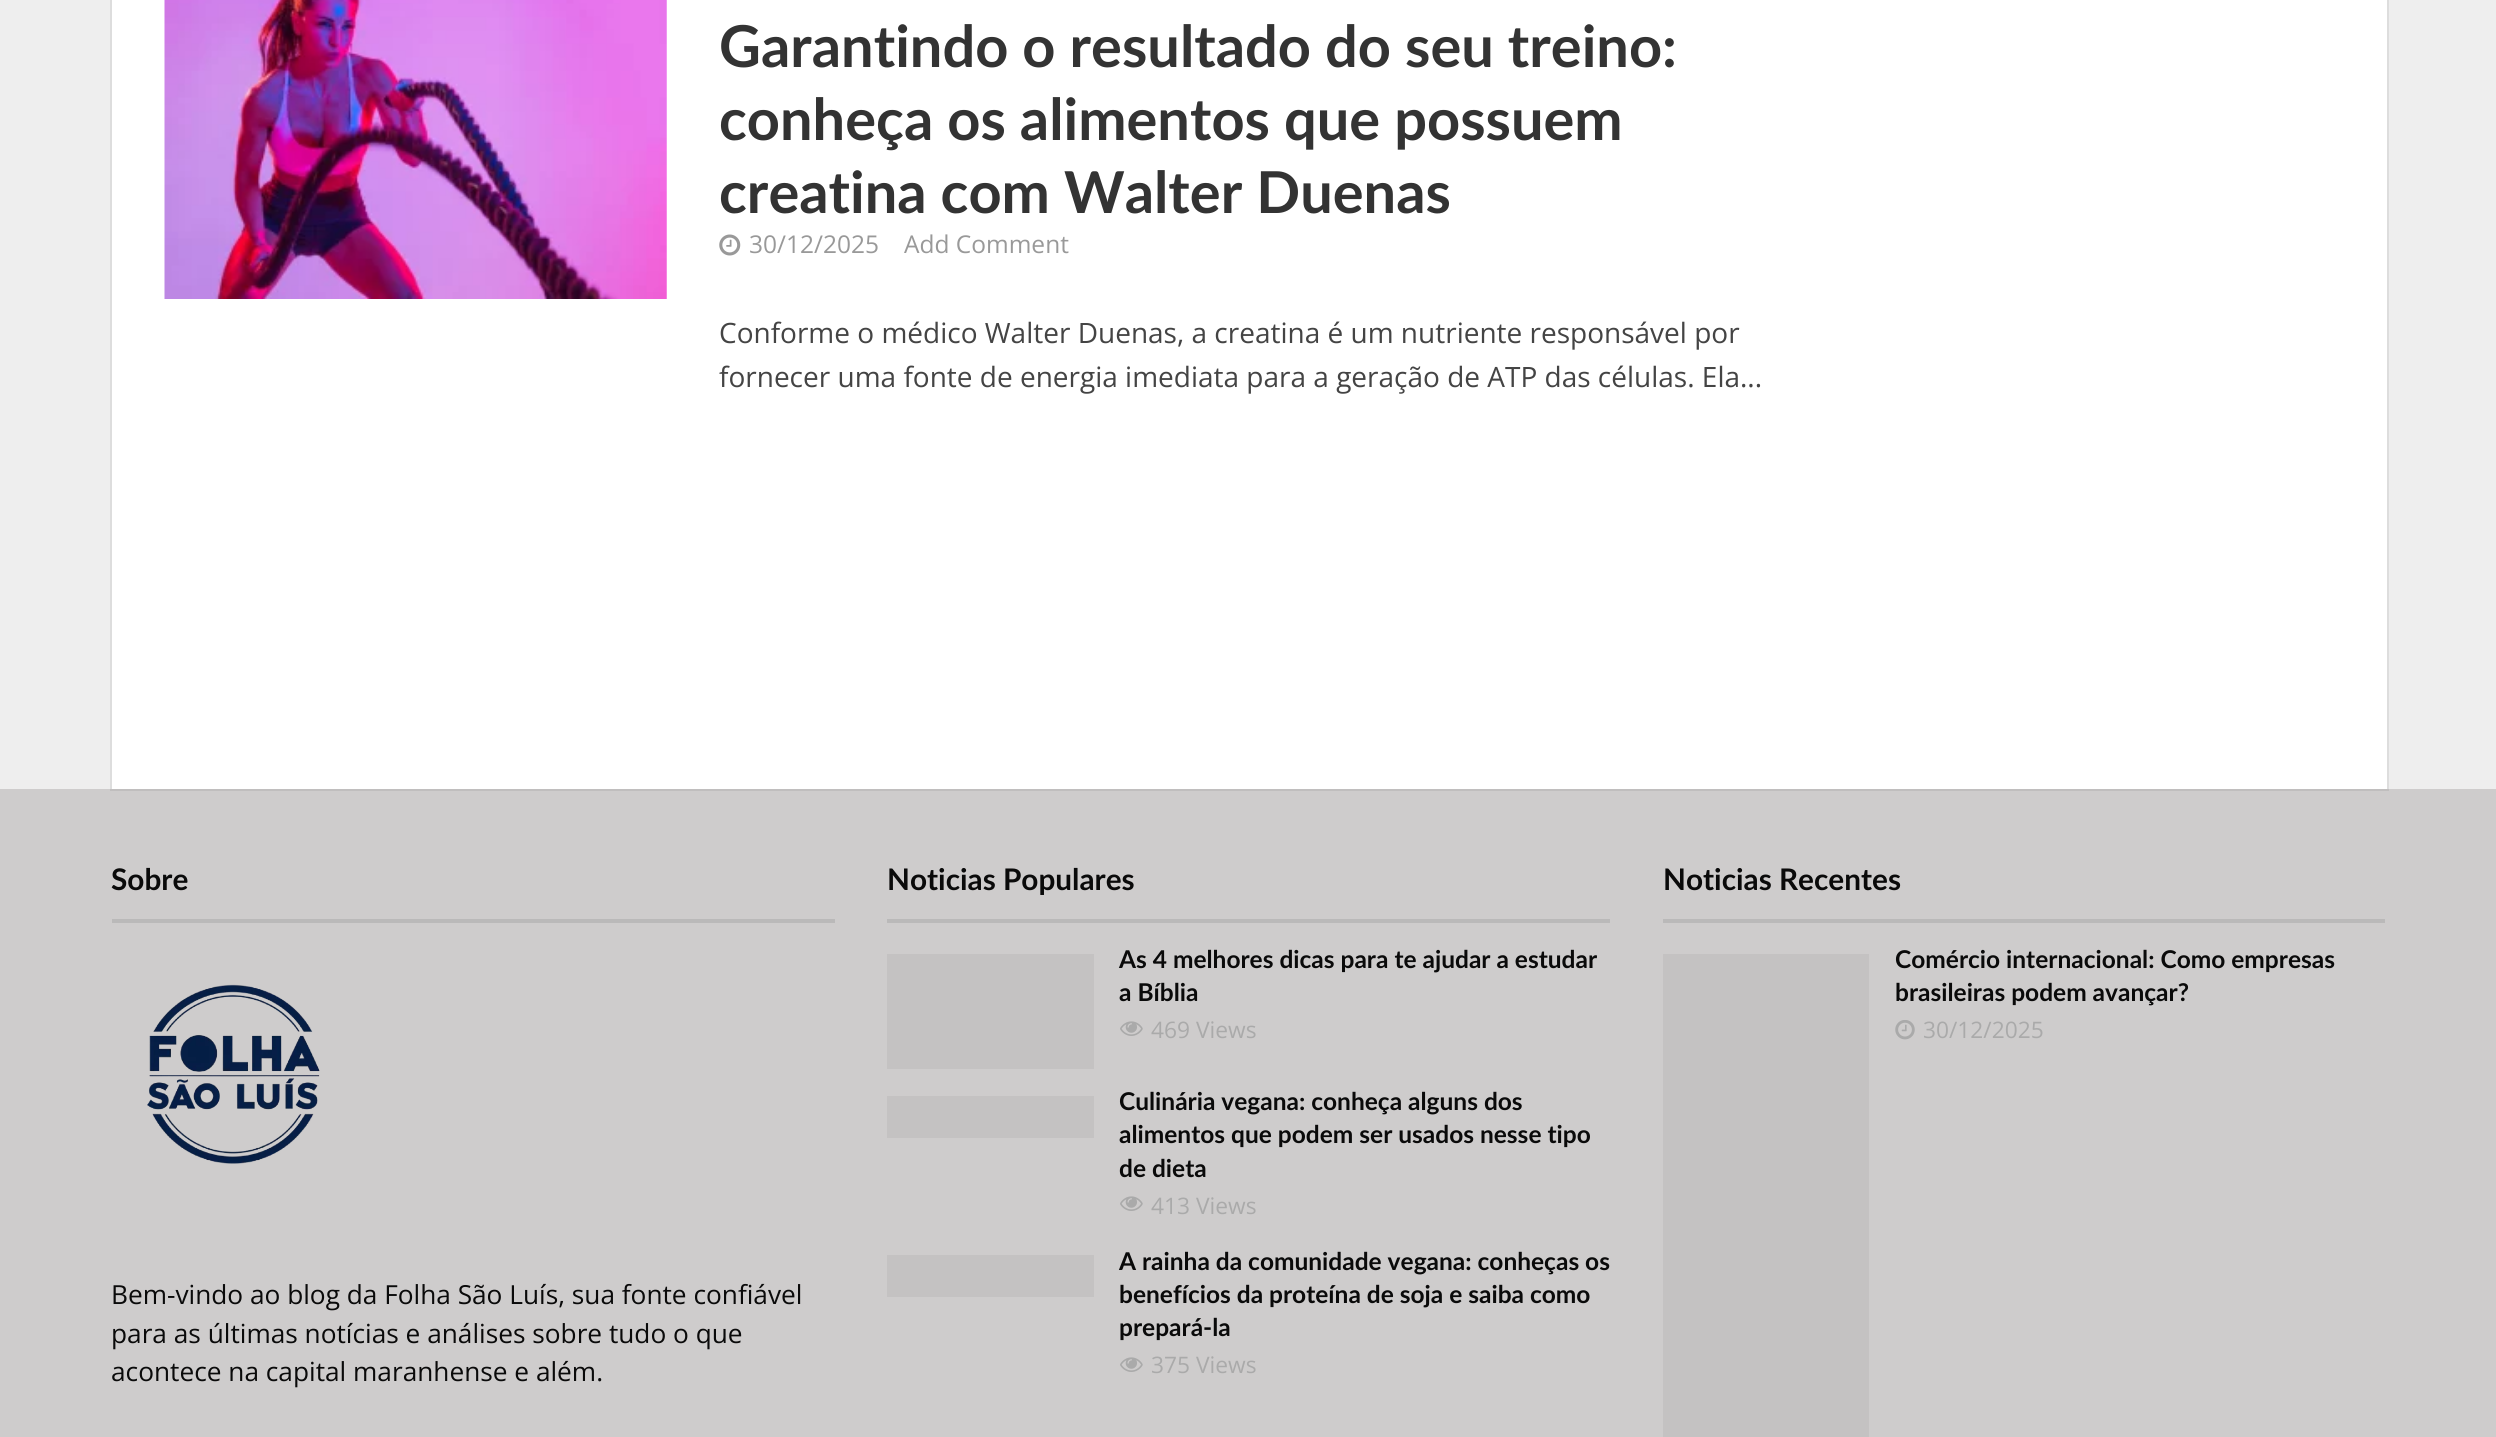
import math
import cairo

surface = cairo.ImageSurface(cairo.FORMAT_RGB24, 2496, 1437)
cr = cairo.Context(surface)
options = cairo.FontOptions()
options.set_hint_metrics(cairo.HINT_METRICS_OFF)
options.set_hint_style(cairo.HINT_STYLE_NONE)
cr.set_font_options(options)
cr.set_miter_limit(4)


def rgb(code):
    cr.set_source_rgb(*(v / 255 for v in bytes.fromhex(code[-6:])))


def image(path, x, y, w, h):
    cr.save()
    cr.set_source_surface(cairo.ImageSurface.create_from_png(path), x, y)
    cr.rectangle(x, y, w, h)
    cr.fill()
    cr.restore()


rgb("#eeeeee")
cr.paint()
rgb("#cecccc")
cr.rectangle(0, 789, 2496, 648)
cr.fill()
cr.rectangle(111, -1, 2277, 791)
cr.set_source_rgba(0.267, 0.267, 0.267, 0.1)
cr.stroke()
rgb("#ffffff")
cr.rectangle(112, 0, 2275, 789)
cr.fill()
image("img/1.png", 164, 0, 503, 299)
image("img/2.png", 719, 234, 22, 22)
rgb("#bab9b9")
cr.rectangle(112, 919, 723, 4)
cr.fill()
image("img/3.png", 147, 984, 173, 180)
cr.rectangle(887, 919, 723, 4)
cr.fill()
rgb("#c4c2c2")
cr.rectangle(887, 954, 207, 115)
cr.fill()
image("img/4.png", 1120, 1021, 23, 15)
cr.rectangle(887, 1096, 207, 42)
cr.fill()
image("img/4.png", 1120, 1196, 23, 15)
cr.rectangle(887, 1255, 207, 42)
cr.fill()
image("img/4.png", 1120, 1357, 23, 15)
rgb("#bab9b9")
cr.rectangle(1663, 919, 722, 4)
cr.fill()
rgb("#c4c2c2")
cr.rectangle(1663, 954, 206, 483)
cr.fill()
image("img/5.png", 1895, 1020, 20, 20)
cr.select_font_face("Lato", cairo.FONT_SLANT_NORMAL, cairo.FONT_WEIGHT_BOLD)
cr.set_font_size(57.75)
rgb("#333333")
for x, y, s in [
    (719, 67, "Garantindo o resultado do seu treino:"),
    (719, 140, "conheça os alimentos que possuem"),
    (719, 213, "creatina com Walter Duenas"),
]:
    cr.move_to(x, y)
    cr.show_text(s)
cr.select_font_face("Open Sans")
cr.set_font_size(24.5)
rgb("#999999")
cr.move_to(749, 253)
cr.show_text("30/12/2025")
cr.move_to(904, 253)
cr.show_text("Add Comment")
cr.set_font_size(28)
rgb("#444444")
cr.move_to(719, 343)
cr.show_text("Conforme o médico Walter Duenas, a creatina é um nutriente responsável por")
cr.move_to(719, 387)
cr.show_text("fornecer uma fonte de energia imediata para a geração de ATP das células. Ela...")
cr.select_font_face("Lato", cairo.FONT_SLANT_NORMAL, cairo.FONT_WEIGHT_BOLD)
cr.set_font_size(29.75)
rgb("#0a0a0a")
cr.move_to(111, 890)
cr.show_text("Sobre")
cr.select_font_face("Open Sans")
cr.set_font_size(26.25)
for x, y, s in [
    (111, 1304, "Bem-vindo ao blog da Folha São Luís, sua fonte confiável"),
    (111, 1343, "para as últimas notícias e análises sobre tudo o que"),
    (111, 1381, "acontece na capital maranhense e além."),
]:
    cr.move_to(x, y)
    cr.show_text(s)
cr.select_font_face("Lato", cairo.FONT_SLANT_NORMAL, cairo.FONT_WEIGHT_BOLD)
cr.set_font_size(29.75)
cr.move_to(887, 890)
cr.show_text("Noticias Populares")
cr.set_font_size(24.5)
cr.move_to(1119, 968)
cr.show_text("As 4 melhores dicas para te ajudar a estudar")
cr.move_to(1119, 1001)
cr.show_text("a Bíblia")
cr.select_font_face("Open Sans")
cr.set_font_size(22.75)
rgb("#aaaaaa")
cr.move_to(1151, 1038)
cr.show_text("469 Views")
cr.select_font_face("Lato", cairo.FONT_SLANT_NORMAL, cairo.FONT_WEIGHT_BOLD)
cr.set_font_size(24.5)
rgb("#0a0a0a")
for x, y, s in [
    (1119, 1110, "Culinária vegana: conheça alguns dos"),
    (1119, 1143, "alimentos que podem ser usados nesse tipo"),
    (1119, 1177, "de dieta"),
]:
    cr.move_to(x, y)
    cr.show_text(s)
cr.select_font_face("Open Sans")
cr.set_font_size(22.75)
rgb("#aaaaaa")
cr.move_to(1151, 1214)
cr.show_text("413 Views")
cr.select_font_face("Lato", cairo.FONT_SLANT_NORMAL, cairo.FONT_WEIGHT_BOLD)
cr.set_font_size(24.5)
rgb("#0a0a0a")
for x, y, s in [
    (1119, 1270, "A rainha da comunidade vegana: conheças os"),
    (1119, 1303, "benefícios da proteína de soja e saiba como"),
    (1119, 1336, "prepará-la"),
]:
    cr.move_to(x, y)
    cr.show_text(s)
cr.select_font_face("Open Sans")
cr.set_font_size(22.75)
rgb("#aaaaaa")
cr.move_to(1151, 1373)
cr.show_text("375 Views")
cr.select_font_face("Lato", cairo.FONT_SLANT_NORMAL, cairo.FONT_WEIGHT_BOLD)
cr.set_font_size(29.75)
rgb("#0a0a0a")
cr.move_to(1663, 890)
cr.show_text("Noticias Recentes")
cr.set_font_size(24.5)
cr.move_to(1895, 968)
cr.show_text("Comércio internacional: Como empresas")
cr.move_to(1895, 1001)
cr.show_text("brasileiras podem avançar?")
cr.select_font_face("Open Sans")
cr.set_font_size(22.75)
rgb("#aaaaaa")
cr.move_to(1923, 1038)
cr.show_text("30/12/2025")
surface.write_to_png("page.png")
